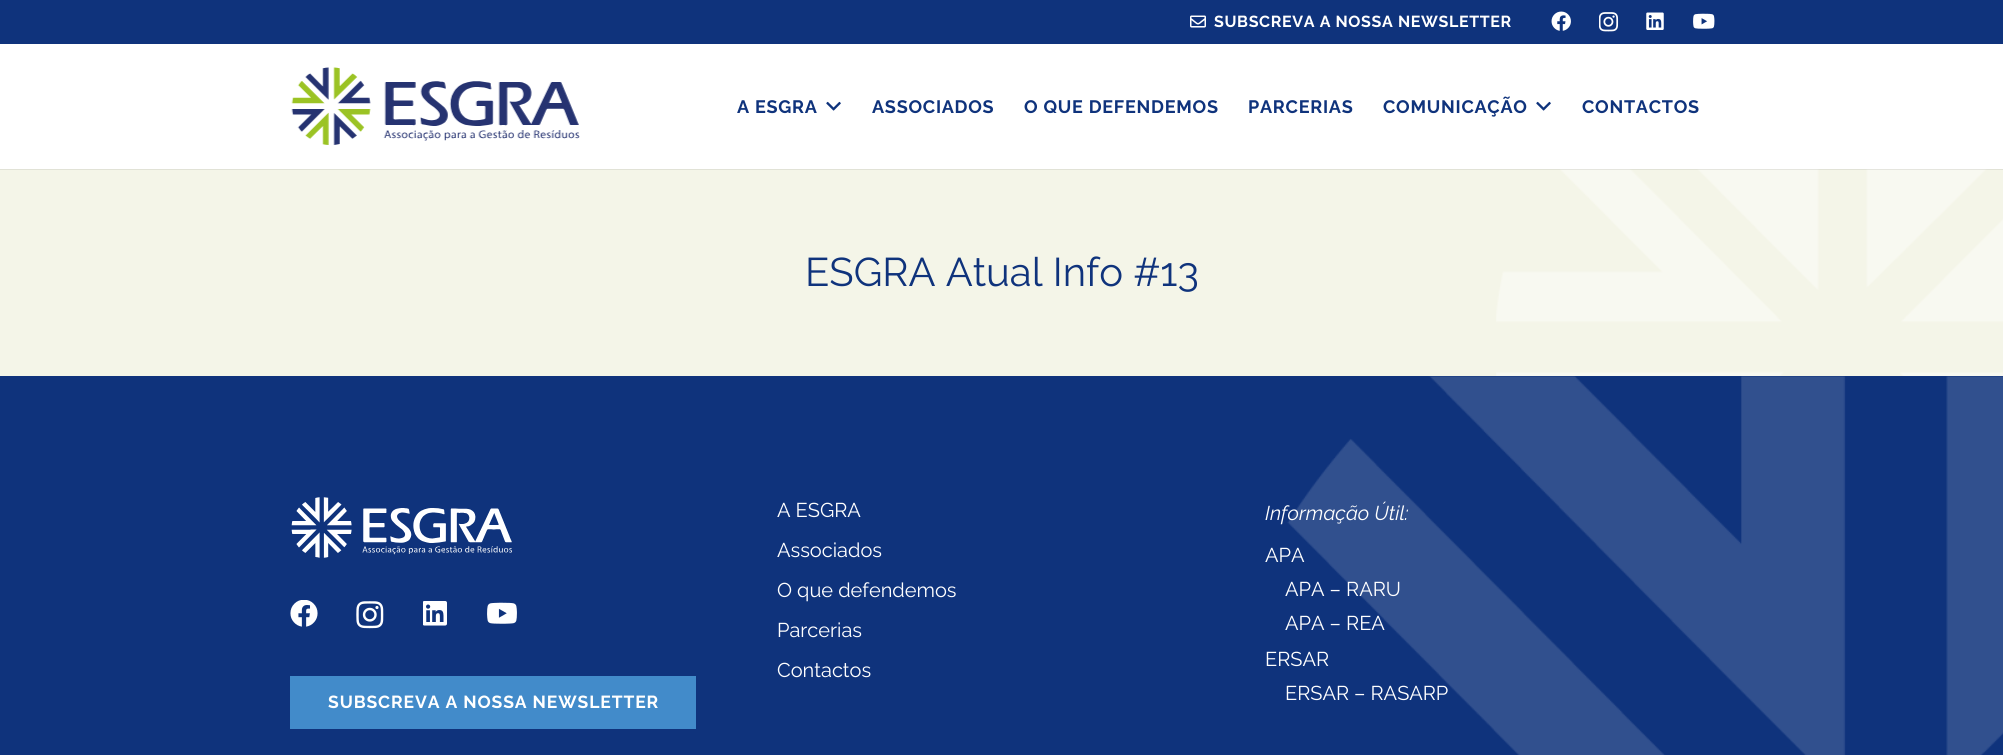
import math
import cairo

surface = cairo.ImageSurface(cairo.FORMAT_RGB24, 2003, 755)
cr = cairo.Context(surface)
options = cairo.FontOptions()
options.set_hint_metrics(cairo.HINT_METRICS_OFF)
options.set_hint_style(cairo.HINT_STYLE_NONE)
cr.set_font_options(options)
cr.set_miter_limit(4)


def rgb(code):
    cr.set_source_rgb(*(v / 255 for v in bytes.fromhex(code[-6:])))


def tracked(x, y, s, letter, word):
    cr.move_to(x, y)
    for ch in s:
        cr.show_text(ch)
        cr.rel_move_to(letter + word * (ch == ' '), 0)


def image(path, x, y, w, h):
    cr.save()
    cr.set_source_surface(cairo.ImageSurface.create_from_png(path), x, y)
    cr.rectangle(x, y, w, h)
    cr.fill()
    cr.restore()


rgb("#f4f5e8")
cr.paint()
rgb("#0f337c")
cr.rectangle(0, 0, 2003, 44)
cr.fill()
image("img/1.png", 1190, 15, 16, 13)
image("img/2.png", 1551, 11, 20, 20)
image("img/3.png", 1599, 12, 20, 20)
image("img/4.png", 1646, 12, 18, 18)
image("img/5.png", 1693, 13, 22, 16)
image("img/8.png", 1496, 169, 507, 207)
cr.set_source_rgba(0, 0, 0, 0.08)
cr.new_path()
cr.move_to(0, 169)
cr.line_to(0, 170)
cr.line_to(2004, 170)
cr.line_to(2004, 45)
cr.line_to(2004, 169)
cr.close_path()
cr.fill()
rgb("#ffffff")
cr.rectangle(0, 44, 2003, 125)
cr.fill()
image("img/6.png", 291, 67, 289, 78)
image("img/7.png", 826, 101, 15, 10)
image("img/7.png", 1536, 101, 15, 10)
rgb("#0f337c")
cr.rectangle(0, 376, 2003, 379)
cr.fill()
image("img/9.png", 1287, 376, 716, 379)
image("img/10.png", 291, 497, 221, 61)
image("img/11.png", 290, 600, 28, 27)
image("img/12.png", 356, 601, 28, 28)
image("img/13.png", 423, 601, 24, 25)
image("img/14.png", 487, 602, 30, 22)
rgb("#428bca")
cr.rectangle(290, 676, 406, 53)
cr.fill()
cr.select_font_face("Raleway", cairo.FONT_SLANT_NORMAL, cairo.FONT_WEIGHT_BOLD)
cr.set_font_size(16)
rgb("#ffffff")
tracked(1214, 27, "SUBSCREVA A NOSSA NEWSLETTER", 0.65, 0)
cr.set_font_size(18)
rgb("#0f337c")
for x, y, s in [
    (737, 113, "A ESGRA"),
    (872, 113, "ASSOCIADOS"),
    (1024, 113, "O QUE DEFENDEMOS"),
    (1248, 113, "PARCERIAS"),
    (1383, 113, "COMUNICAÇÃO"),
    (1582, 113, "CONTACTOS"),
]:
    tracked(x, y, s, 0.75, 0)
cr.select_font_face("Raleway")
cr.set_font_size(40)
cr.move_to(805, 286)
cr.show_text("ESGRA Atual Info #13")
cr.set_font_size(20)
rgb("#ffffff")
for x, y, s in [
    (777, 517, "A ESGRA"),
    (777, 557, "Associados"),
    (777, 597, "O que defendemos"),
    (777, 637, "Parcerias"),
    (777, 677, "Contactos"),
]:
    cr.move_to(x, y)
    cr.show_text(s)
cr.select_font_face("Raleway", cairo.FONT_SLANT_ITALIC)
cr.move_to(1265, 520)
cr.show_text("Informação Útil:")
cr.select_font_face("Raleway")
for x, y, s in [
    (1265, 562, "APA"),
    (1285, 596, "APA – RARU"),
    (1285, 630, "APA – REA"),
    (1265, 666, "ERSAR"),
    (1285, 700, "ERSAR – RASARP"),
]:
    cr.move_to(x, y)
    cr.show_text(s)
cr.select_font_face("Raleway", cairo.FONT_SLANT_NORMAL, cairo.FONT_WEIGHT_BOLD)
cr.set_font_size(17.5)
tracked(328, 708, "SUBSCREVA A NOSSA NEWSLETTER", 0.9, 0)
surface.write_to_png("page.png")
